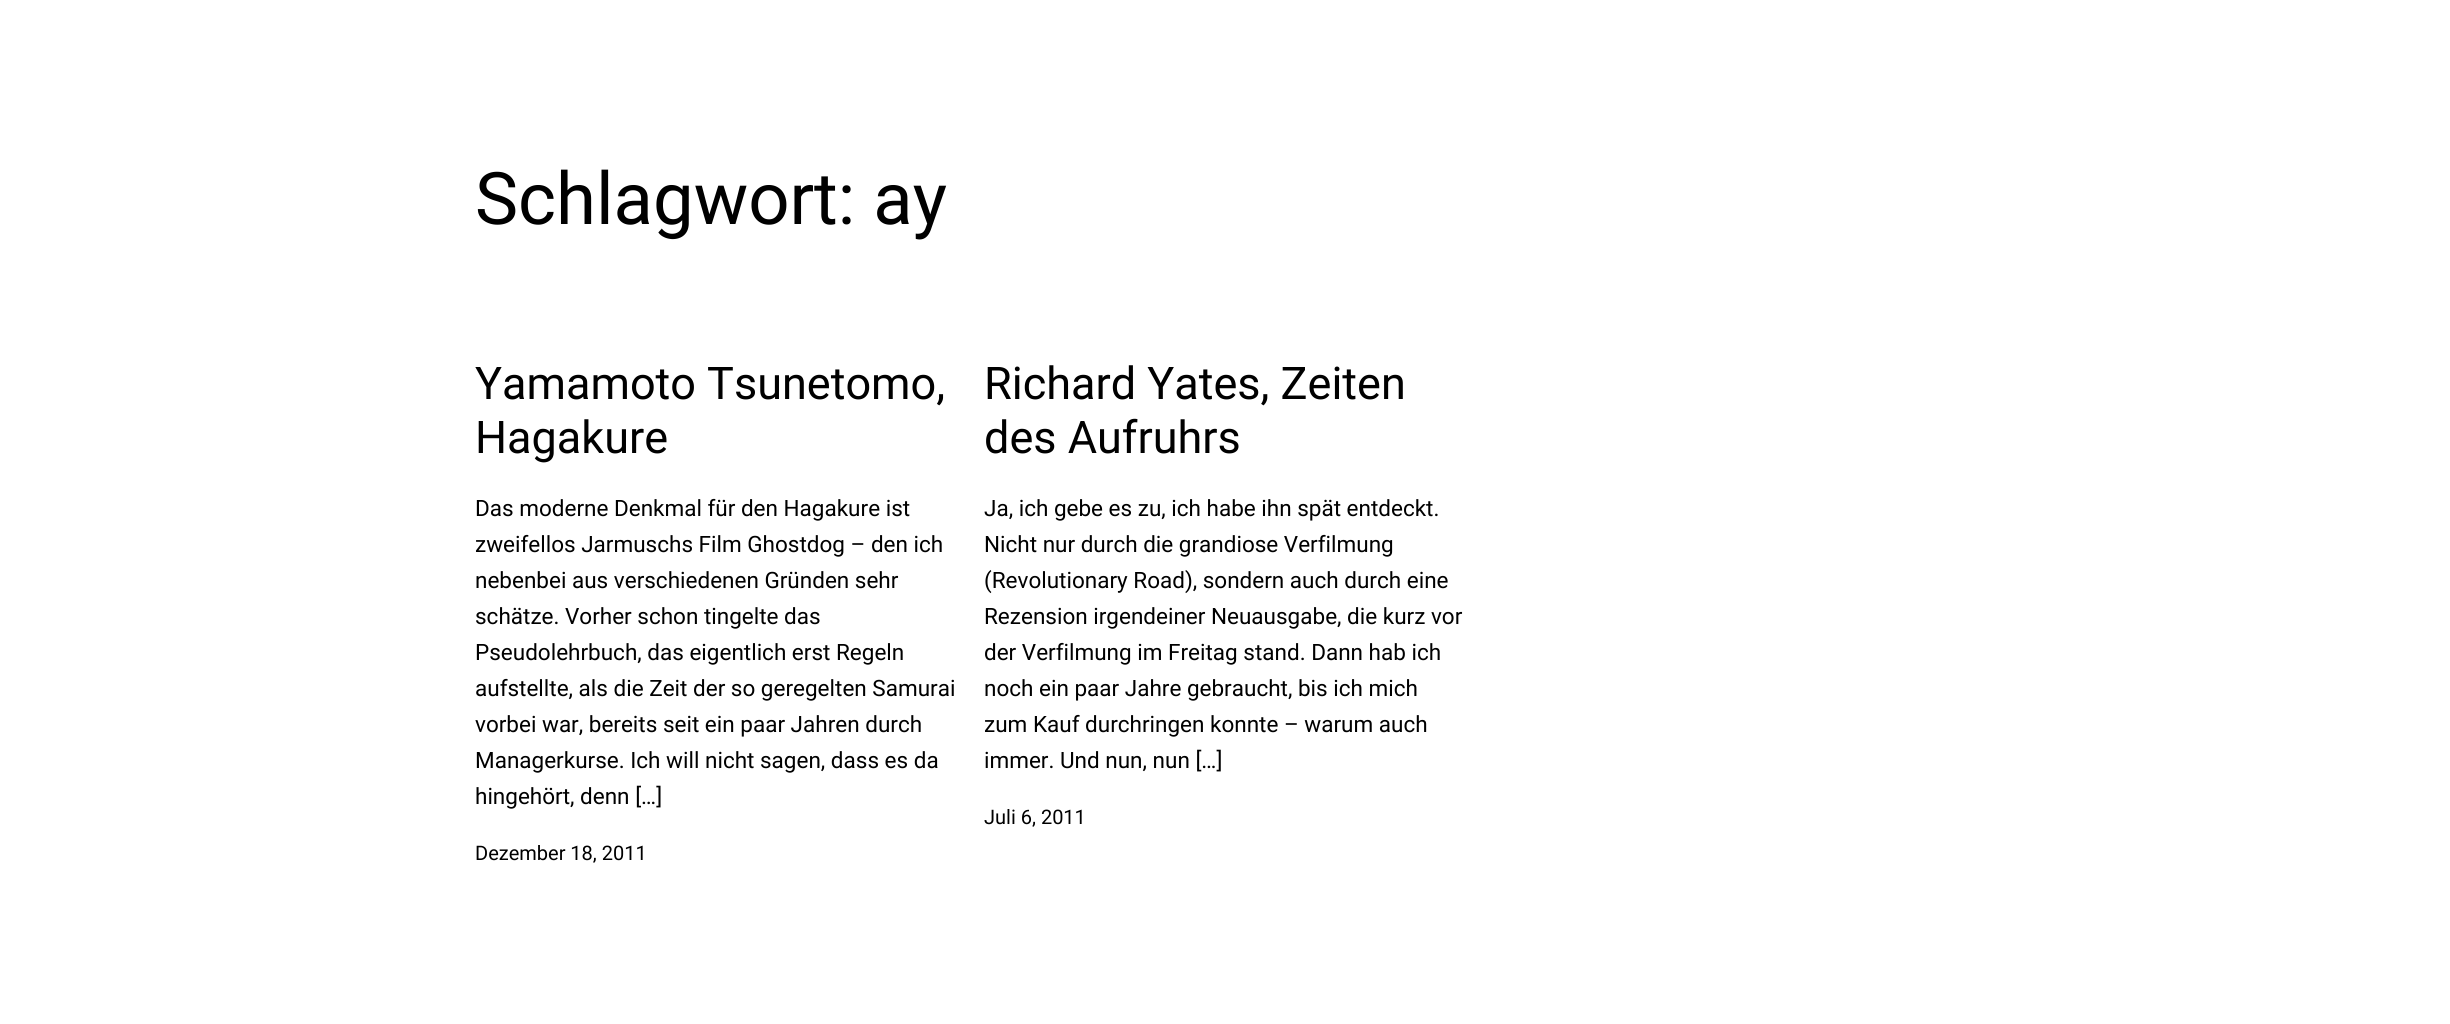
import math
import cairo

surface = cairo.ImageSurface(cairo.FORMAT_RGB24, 2450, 1024)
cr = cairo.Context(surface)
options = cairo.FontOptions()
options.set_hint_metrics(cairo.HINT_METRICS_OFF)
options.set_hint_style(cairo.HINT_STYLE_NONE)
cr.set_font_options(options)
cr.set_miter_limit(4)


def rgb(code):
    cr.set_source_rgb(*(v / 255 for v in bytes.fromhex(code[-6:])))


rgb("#ffffff")
cr.paint()
cr.select_font_face("Roboto")
cr.set_font_size(72.5)
rgb("#000000")
cr.move_to(475, 224)
cr.show_text("Schlagwort: ay")
cr.set_font_size(45)
cr.move_to(475, 399)
cr.show_text("Yamamoto Tsunetomo,")
cr.move_to(475, 453)
cr.show_text("Hagakure")
cr.set_font_size(22.5)
for x, y, s in [
    (475, 516, "Das moderne Denkmal für den Hagakure ist"),
    (475, 552, "zweifellos Jarmuschs Film Ghostdog – den ich"),
    (475, 588, "nebenbei aus verschiedenen Gründen sehr"),
    (475, 624, "schätze. Vorher schon tingelte das"),
    (475, 660, "Pseudolehrbuch, das eigentlich erst Regeln"),
    (475, 696, "aufstellte, als die Zeit der so geregelten Samurai"),
    (475, 732, "vorbei war, bereits seit ein paar Jahren durch"),
    (475, 768, "Managerkurse. Ich will nicht sagen, dass es da"),
    (475, 804, "hingehört, denn […]"),
]:
    cr.move_to(x, y)
    cr.show_text(s)
cr.set_font_size(20)
cr.move_to(475, 860)
cr.show_text("Dezember 18, 2011")
cr.set_font_size(45)
cr.move_to(984, 399)
cr.show_text("Richard Yates, Zeiten")
cr.move_to(984, 453)
cr.show_text("des Aufruhrs")
cr.set_font_size(22.5)
for x, y, s in [
    (984, 516, "Ja, ich gebe es zu, ich habe ihn spät entdeckt."),
    (984, 552, "Nicht nur durch die grandiose Verfilmung"),
    (984, 588, "(Revolutionary Road), sondern auch durch eine"),
    (984, 624, "Rezension irgendeiner Neuausgabe, die kurz vor"),
    (984, 660, "der Verfilmung im Freitag stand. Dann hab ich"),
    (984, 696, "noch ein paar Jahre gebraucht, bis ich mich"),
    (984, 732, "zum Kauf durchringen konnte – warum auch"),
    (984, 768, "immer. Und nun, nun […]"),
]:
    cr.move_to(x, y)
    cr.show_text(s)
cr.set_font_size(20)
cr.move_to(984, 824)
cr.show_text("Juli 6, 2011")
surface.write_to_png("page.png")
